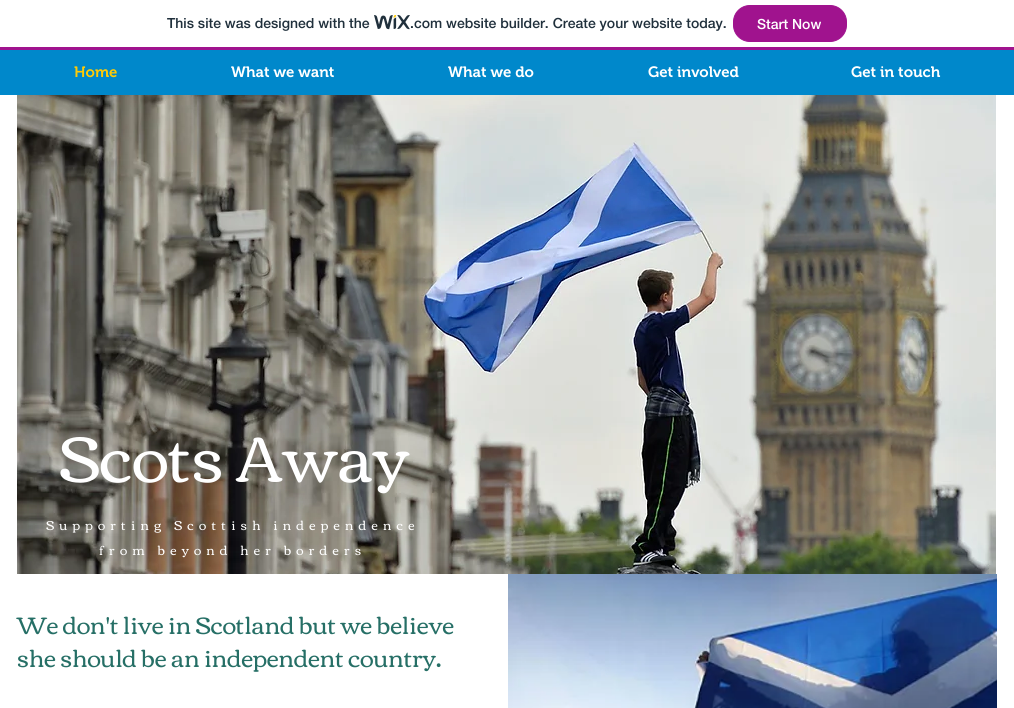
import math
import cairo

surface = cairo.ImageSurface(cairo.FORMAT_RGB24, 1014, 708)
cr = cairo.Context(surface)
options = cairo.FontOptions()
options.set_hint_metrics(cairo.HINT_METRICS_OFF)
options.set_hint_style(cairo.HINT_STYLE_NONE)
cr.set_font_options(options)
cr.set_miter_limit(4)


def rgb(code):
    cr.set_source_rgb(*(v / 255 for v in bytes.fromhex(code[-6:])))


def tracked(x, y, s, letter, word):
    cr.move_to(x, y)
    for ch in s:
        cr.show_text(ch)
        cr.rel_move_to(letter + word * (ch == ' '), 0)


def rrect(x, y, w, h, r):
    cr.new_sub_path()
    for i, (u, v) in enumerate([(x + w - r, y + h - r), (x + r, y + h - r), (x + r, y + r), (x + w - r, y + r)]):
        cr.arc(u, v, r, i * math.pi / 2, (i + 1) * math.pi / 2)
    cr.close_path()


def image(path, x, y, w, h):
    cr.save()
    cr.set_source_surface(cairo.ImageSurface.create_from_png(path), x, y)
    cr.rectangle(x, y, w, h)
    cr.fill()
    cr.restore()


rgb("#ffffff")
cr.paint()
rgb("#a0138e")
cr.rectangle(0, 47, 1014, 3)
cr.fill()
image("img/1.png", 374, 15, 36, 15)
rrect(733.5, 5.5, 113, 36, 16.5)
cr.fill_preserve()
cr.set_line_width(1)
cr.stroke()
rgb("#0088cb")
cr.rectangle(0, 50, 1014, 45)
cr.fill()
image("img/2.png", 17, 95, 979, 479)
image("img/3.png", 508, 574, 489, 134)
cr.select_font_face("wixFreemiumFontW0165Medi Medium")
cr.set_font_size(14)
rgb("#20303c")
cr.move_to(167, 28)
cr.show_text("This site was designed with the")
cr.move_to(410, 28)
cr.show_text(".com website builder. Create your website today.")
rgb("#ffffff")
cr.move_to(757, 29)
cr.show_text("Start Now")
cr.select_font_face("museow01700 SemiBold")
cr.set_font_size(15)
rgb("#ffcb05")
cr.move_to(74, 77)
cr.show_text("Home")
rgb("#ffffff")
for x, y, s in [
    (231, 77, "What we want"),
    (448, 77, "What we do"),
    (648, 77, "Get involved"),
    (851, 77, "Get in touch"),
]:
    cr.move_to(x, y)
    cr.show_text(s)
cr.select_font_face("Corben")
cr.set_font_size(65)
cr.move_to(59, 482)
cr.show_text("Scots Away")
cr.set_font_size(13)
tracked(46, 530, "Supporting Scottish independence", 5.2, 0)
tracked(99, 555, "from beyond her borders", 5.2, 0)
cr.set_font_size(24)
rgb("#266f66")
cr.move_to(17, 634)
cr.show_text("We don't live in Scotland but we believe")
cr.move_to(17, 667)
cr.show_text("she should be an independent country")
cr.select_font_face("Lobster")
cr.move_to(436, 667)
cr.show_text(".")
surface.write_to_png("page.png")
